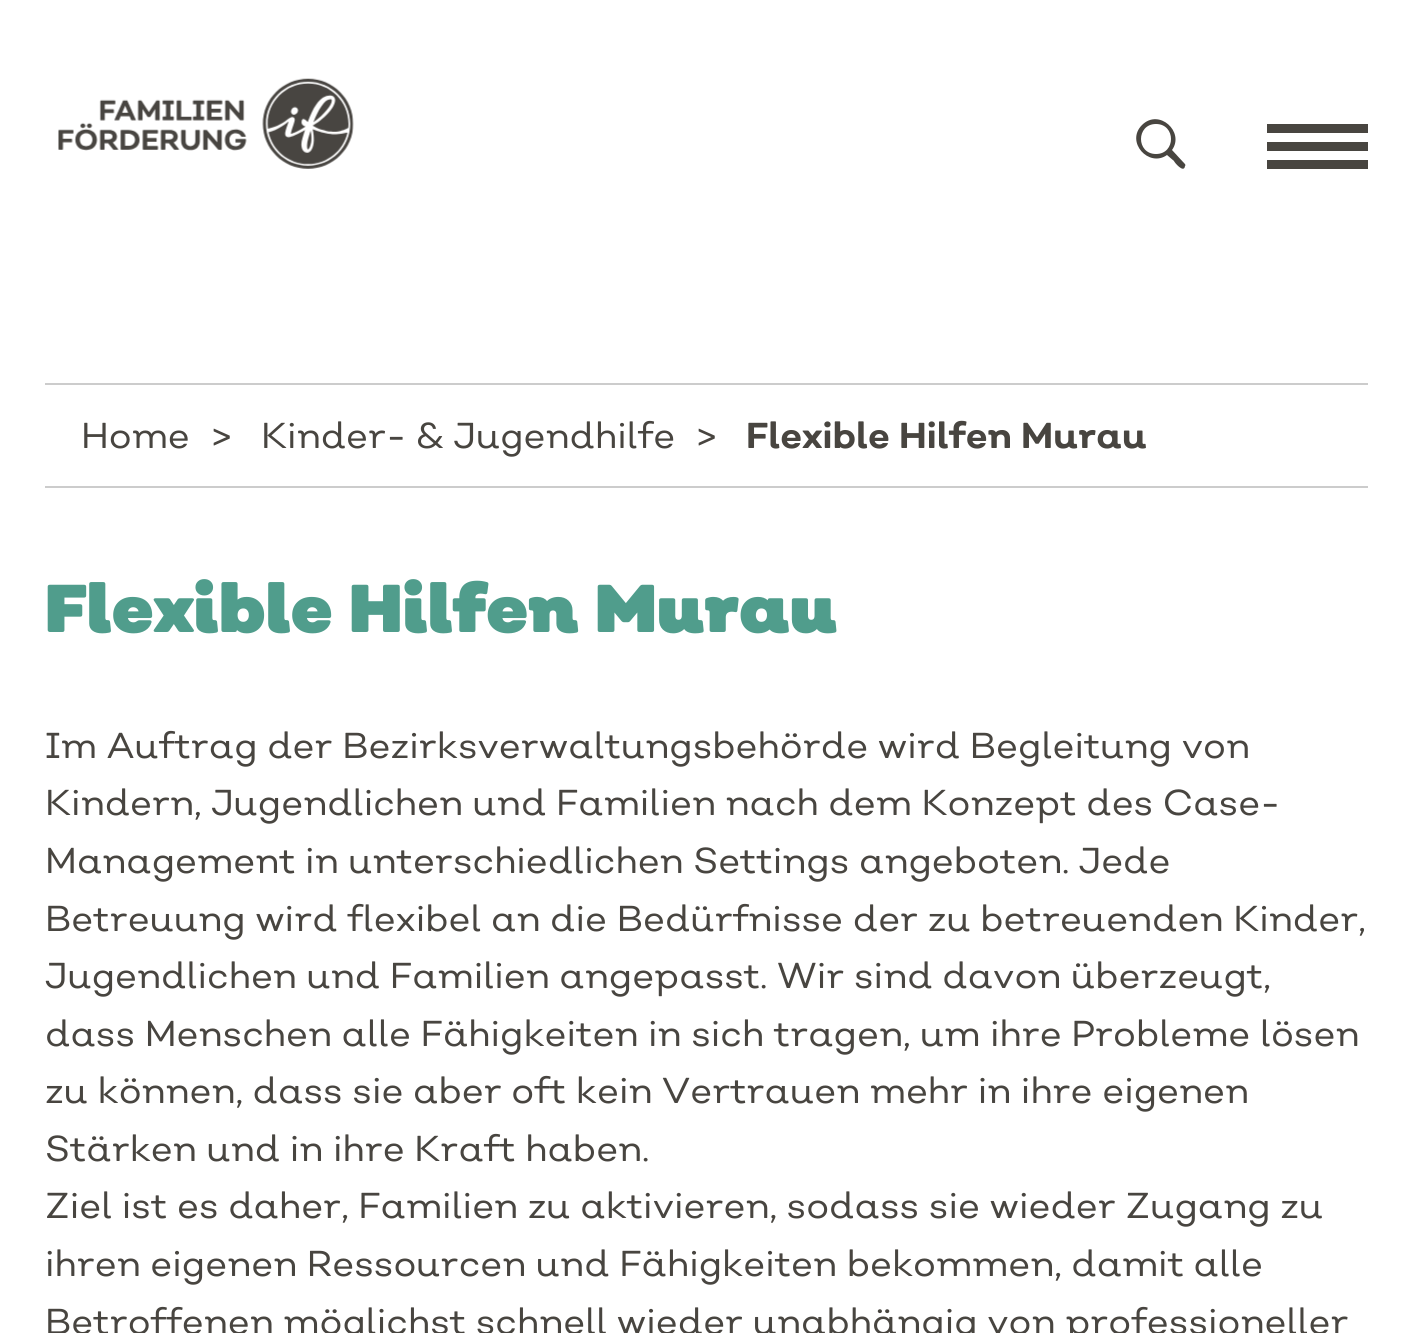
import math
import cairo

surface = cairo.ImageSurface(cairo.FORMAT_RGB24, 1411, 1333)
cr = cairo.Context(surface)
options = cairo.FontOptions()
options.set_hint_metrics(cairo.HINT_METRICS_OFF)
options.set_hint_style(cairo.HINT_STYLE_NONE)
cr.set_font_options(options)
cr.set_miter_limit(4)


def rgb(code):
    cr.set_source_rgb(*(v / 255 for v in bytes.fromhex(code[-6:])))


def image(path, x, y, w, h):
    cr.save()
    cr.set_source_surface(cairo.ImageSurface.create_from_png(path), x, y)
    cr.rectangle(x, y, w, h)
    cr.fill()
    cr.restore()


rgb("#ffffff")
cr.paint()
image("img/1.png", 58, 78, 296, 91)
rgb("#484540")
cr.new_path()
cr.move_to(1184, 163)
cr.line_to(1172, 150)
cr.curve_to(1185, 132, 1159, 108, 1142, 125)
cr.curve_to(1125, 142, 1149, 168, 1167, 155)
cr.line_to(1174, 161)
cr.curve_to(1174, 162, 1184, 174, 1185, 166)
cr.curve_to(1186, 165, 1185, 164, 1184, 163)
cr.close_path()
cr.move_to(1156, 154)
cr.curve_to(1136, 154, 1136, 124, 1156, 124)
cr.curve_to(1176, 124, 1176, 154, 1156, 154)
cr.close_path()
cr.fill()
for x, y, w, h, color in [
    (1267, 124, 101, 9, "#484540"),
    (1267, 142, 101, 9, "#484540"),
    (1267, 160, 101, 9, "#484540"),
    (45, 383, 1323, 2, "#cccccc"),
    (45, 486, 1323, 2, "#cccccc"),
]:
    rgb(color)
    cr.rectangle(x, y, w, h)
    cr.fill()
cr.select_font_face("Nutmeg")
cr.set_font_size(36)
rgb("#484540")
for x, y, s in [
    (81, 448, "Home"),
    (211, 448, ">"),
    (261, 448, "Kinder- & Jugendhilfe"),
    (696, 448, ">"),
]:
    cr.move_to(x, y)
    cr.show_text(s)
cr.select_font_face("Nutmeg", cairo.FONT_SLANT_NORMAL, cairo.FONT_WEIGHT_BOLD)
cr.move_to(746, 448)
cr.show_text("Flexible Hilfen Murau")
cr.select_font_face("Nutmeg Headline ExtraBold")
cr.set_font_size(67.5)
rgb("#509d8c")
cr.move_to(45, 632)
cr.show_text("Flexible Hilfen Murau")
cr.select_font_face("Nutmeg")
cr.set_font_size(36)
rgb("#484540")
for x, y, s in [
    (45, 758, "Im Auftrag der Bezirksverwaltungsbehörde wird Begleitung von"),
    (45, 815, "Kindern, Jugendlichen und Familien nach dem Konzept des Case-"),
    (45, 873, "Management in unterschiedlichen Settings angeboten. Jede"),
    (45, 931, "Betreuung wird flexibel an die Bedürfnisse der zu betreuenden Kinder,"),
    (45, 988, "Jugendlichen und Familien angepasst. Wir sind davon überzeugt,"),
    (45, 1046, "dass Menschen alle Fähigkeiten in sich tragen, um ihre Probleme lösen"),
    (45, 1103, "zu können, dass sie aber oft kein Vertrauen mehr in ihre eigenen"),
    (45, 1161, "Stärken und in ihre Kraft haben."),
    (45, 1218, "Ziel ist es daher, Familien zu aktivieren, sodass sie wieder Zugang zu"),
    (45, 1276, "ihren eigenen Ressourcen und Fähigkeiten bekommen, damit alle"),
    (45, 1334, "Betroffenen möglichst schnell wieder unabhängig von professioneller"),
]:
    cr.move_to(x, y)
    cr.show_text(s)
surface.write_to_png("page.png")
